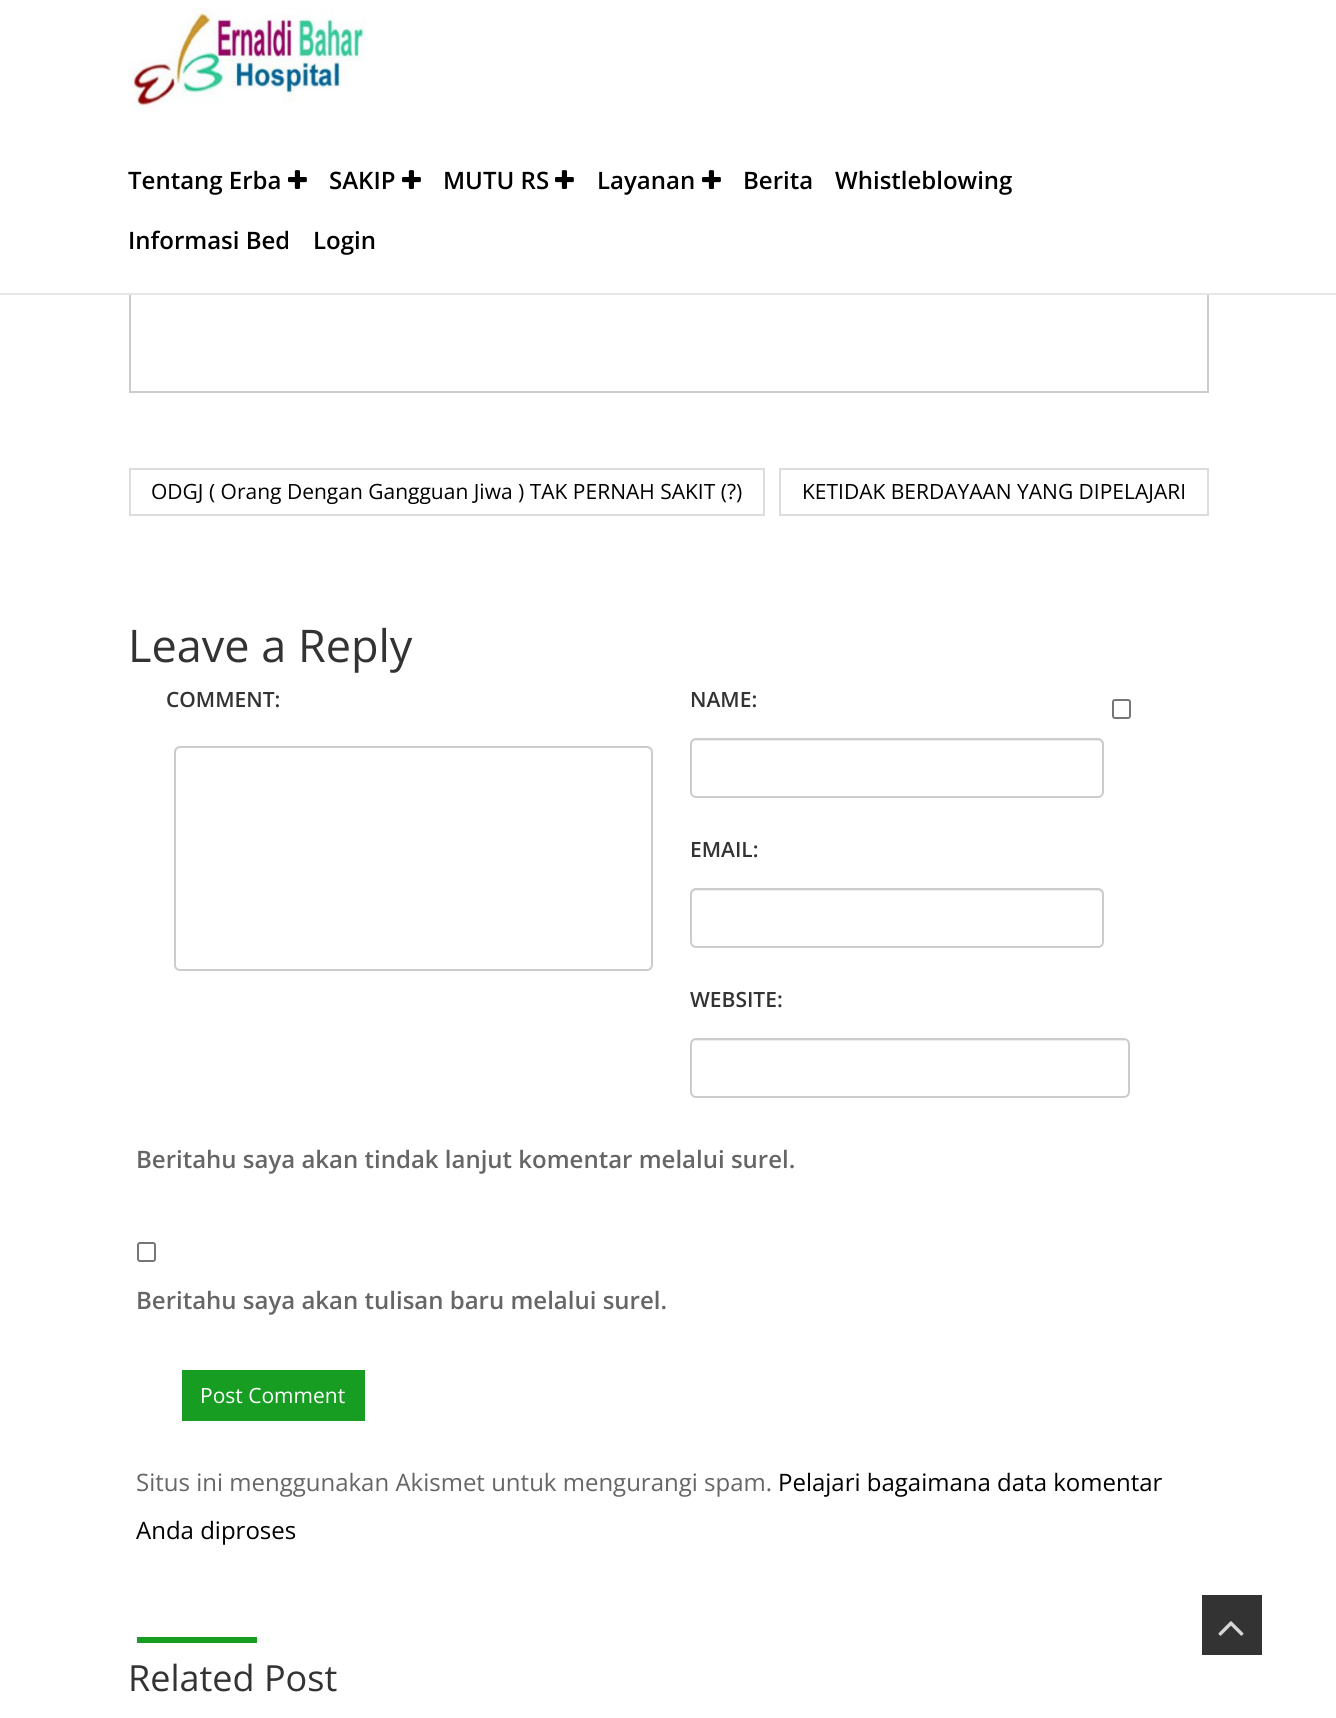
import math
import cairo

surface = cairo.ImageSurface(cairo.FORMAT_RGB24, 1336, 1718)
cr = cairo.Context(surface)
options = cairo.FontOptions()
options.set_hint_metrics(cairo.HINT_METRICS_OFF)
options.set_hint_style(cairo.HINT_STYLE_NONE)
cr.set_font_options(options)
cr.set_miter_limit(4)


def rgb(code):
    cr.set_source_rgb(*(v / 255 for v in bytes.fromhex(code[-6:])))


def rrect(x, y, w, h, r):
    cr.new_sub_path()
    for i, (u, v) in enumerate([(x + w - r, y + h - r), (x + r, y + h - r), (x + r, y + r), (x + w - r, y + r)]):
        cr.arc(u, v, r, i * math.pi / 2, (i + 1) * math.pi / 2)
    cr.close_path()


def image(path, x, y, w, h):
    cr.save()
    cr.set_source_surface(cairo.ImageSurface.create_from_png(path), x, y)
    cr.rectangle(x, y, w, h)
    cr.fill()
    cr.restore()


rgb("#ffffff")
cr.paint()
cr.rectangle(130, -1, 1078, 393)
rgb("#cccccc")
cr.stroke()
rgb("#ffffff")
cr.rectangle(129, 0, 1080, 293)
cr.fill()
rgb("#e6e6e6")
cr.rectangle(0, 293, 1336, 2)
cr.fill()
image("img/1.png", 129, 7, 237, 104)
image("img/2.png", 288, 170, 19, 19)
image("img/2.png", 402, 170, 19, 19)
image("img/2.png", 555, 170, 19, 19)
image("img/2.png", 702, 170, 19, 19)
cr.rectangle(130, 469, 634, 46)
rgb("#dddddd")
cr.stroke()
cr.rectangle(780, 469, 428, 46)
cr.stroke()
rgb("#ececec")
cr.new_path()
cr.move_to(180, 748)
cr.line_to(646, 748)
cr.curve_to(649, 748, 651, 751, 651, 753)
cr.line_to(651, 752)
cr.curve_to(651, 749, 649, 747, 646, 747)
cr.line_to(181, 747)
cr.curve_to(178, 747, 176, 749, 176, 752)
cr.line_to(176, 753)
cr.curve_to(176, 751, 178, 748, 180, 748)
cr.close_path()
cr.fill()
rrect(175, 747, 477, 223, 5)
rgb("#cccccc")
cr.stroke()
rgb("#ececec")
cr.new_path()
cr.move_to(696, 741)
cr.line_to(1098, 741)
cr.curve_to(1100, 741, 1102, 743, 1102, 746)
cr.line_to(1102, 795)
cr.curve_to(1103, 794, 1103, 793, 1103, 792)
cr.line_to(1103, 745)
cr.curve_to(1103, 742, 1101, 740, 1098, 740)
cr.line_to(697, 740)
cr.curve_to(694, 740, 692, 742, 692, 745)
cr.line_to(692, 746)
cr.curve_to(692, 743, 694, 741, 696, 741)
cr.close_path()
cr.fill()
rrect(691, 739, 412, 58, 5)
rgb("#cccccc")
cr.stroke()
rgb("#ececec")
cr.new_path()
cr.move_to(696, 891)
cr.line_to(1098, 891)
cr.curve_to(1100, 891, 1102, 893, 1102, 896)
cr.line_to(1102, 945)
cr.curve_to(1103, 944, 1103, 943, 1103, 942)
cr.line_to(1103, 895)
cr.curve_to(1103, 892, 1101, 890, 1098, 890)
cr.line_to(697, 890)
cr.curve_to(694, 890, 692, 892, 692, 895)
cr.line_to(692, 896)
cr.curve_to(692, 893, 694, 891, 696, 891)
cr.close_path()
cr.fill()
rrect(691, 889, 412, 58, 5)
rgb("#cccccc")
cr.stroke()
rgb("#ececec")
cr.new_path()
cr.move_to(696, 1041)
cr.line_to(1124, 1041)
cr.curve_to(1126, 1041, 1128, 1043, 1128, 1046)
cr.curve_to(1128, 1043, 1126, 1040, 1123, 1040)
cr.line_to(697, 1040)
cr.curve_to(694, 1040, 692, 1043, 692, 1046)
cr.curve_to(692, 1043, 694, 1041, 696, 1041)
cr.close_path()
cr.fill()
rrect(691, 1039, 438, 58, 5)
rgb("#cccccc")
cr.stroke()
rrect(1113, 700, 17, 18, 2)
rgb("#767676")
cr.stroke()
rrect(138, 1243, 17, 18, 2)
cr.stroke()
for x, y, w, h, color in [
    (182, 1370, 183, 51, "#169d22"),
    (137, 1637, 120, 6, "#169d22"),
    (1202, 1595, 60, 60, "#333333"),
]:
    rgb(color)
    cr.rectangle(x, y, w, h)
    cr.fill()
image("img/3.png", 1218, 1621, 26, 15)
cr.select_font_face("Open Sans SemiBold")
cr.set_font_size(24)
rgb("#000000")
for x, y, s in [
    (128, 189, "Tentang Erba"),
    (329, 189, "SAKIP"),
    (443, 189, "MUTU RS"),
    (597, 189, "Layanan"),
    (743, 189, "Berita"),
    (835, 189, "Whistleblowing"),
    (128, 249, "Informasi Bed"),
    (313, 249, "Login"),
]:
    cr.move_to(x, y)
    cr.show_text(s)
cr.select_font_face("Open Sans")
cr.set_font_size(21)
cr.move_to(151, 499)
cr.show_text("ODGJ ( Orang Dengan Gangguan Jiwa ) TAK PERNAH SAKIT (?)")
cr.move_to(802, 499)
cr.show_text("KETIDAK BERDAYAAN YANG DIPELAJARI")
cr.set_font_size(45)
rgb("#333333")
cr.move_to(128, 662)
cr.show_text("Leave a Reply")
cr.select_font_face("Open Sans SemiBold")
cr.set_font_size(21)
for x, y, s in [
    (166, 707, "COMMENT:"),
    (690, 707, "NAME:"),
    (690, 857, "EMAIL:"),
    (690, 1007, "WEBSITE:"),
]:
    cr.move_to(x, y)
    cr.show_text(s)
cr.set_font_size(24)
rgb("#666666")
cr.move_to(136, 1168)
cr.show_text("Beritahu saya akan tindak lanjut komentar melalui surel.")
cr.move_to(136, 1309)
cr.show_text("Beritahu saya akan tulisan baru melalui surel.")
cr.select_font_face("Open Sans")
cr.set_font_size(21)
rgb("#ffffff")
cr.move_to(200, 1403)
cr.show_text("Post Comment")
cr.set_font_size(24)
rgb("#666666")
cr.move_to(136, 1491)
cr.show_text("Situs ini menggunakan Akismet untuk mengurangi spam.")
rgb("#000000")
cr.move_to(778, 1491)
cr.show_text("Pelajari bagaimana data komentar")
cr.move_to(136, 1539)
cr.show_text("Anda diproses")
cr.set_font_size(36)
rgb("#333333")
cr.move_to(128, 1691)
cr.show_text("Related Post")
surface.write_to_png("page.png")
